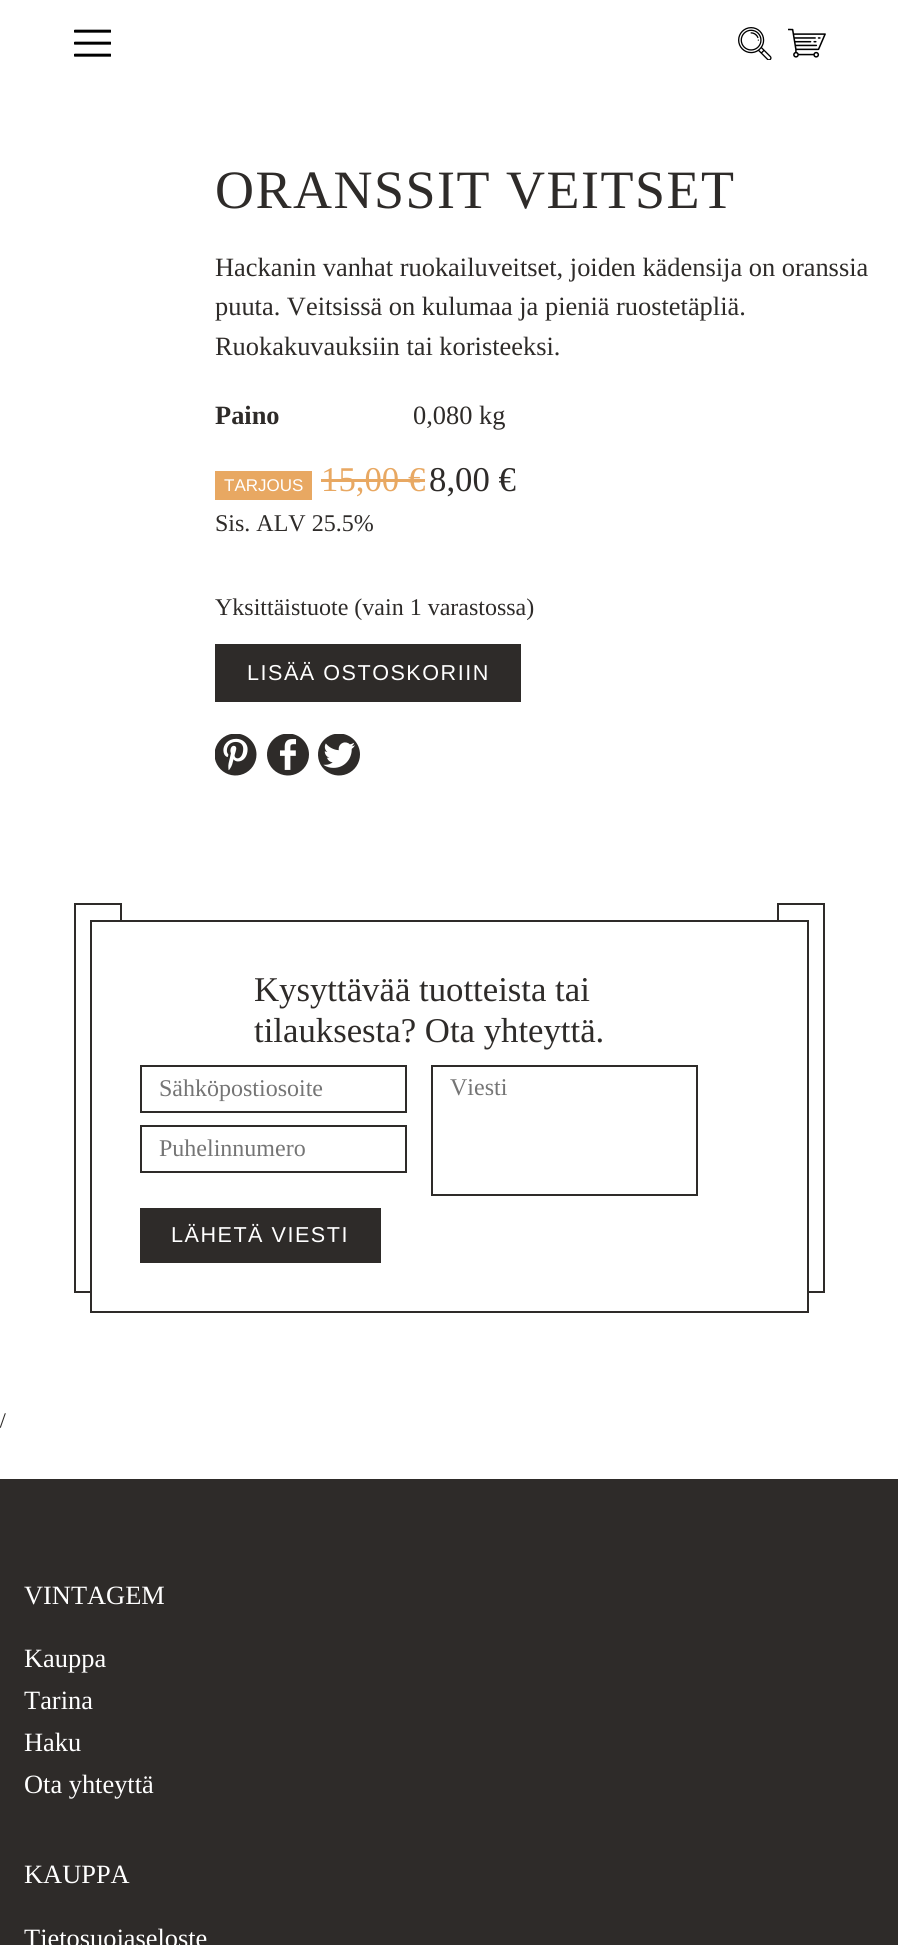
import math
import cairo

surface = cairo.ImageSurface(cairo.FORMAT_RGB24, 898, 1945)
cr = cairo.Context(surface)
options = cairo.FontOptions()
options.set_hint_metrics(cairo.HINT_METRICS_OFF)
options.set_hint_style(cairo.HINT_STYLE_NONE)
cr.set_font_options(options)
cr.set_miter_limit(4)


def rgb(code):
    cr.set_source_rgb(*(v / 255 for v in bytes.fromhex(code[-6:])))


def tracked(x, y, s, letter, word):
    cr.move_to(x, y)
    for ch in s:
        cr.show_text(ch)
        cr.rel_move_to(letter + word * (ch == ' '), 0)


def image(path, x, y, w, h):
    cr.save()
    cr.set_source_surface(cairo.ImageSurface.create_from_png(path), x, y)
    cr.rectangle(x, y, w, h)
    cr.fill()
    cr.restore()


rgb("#ffffff")
cr.paint()
image("img/1.png", 74, 29, 37, 28)
image("img/2.png", 738, 27, 34, 33)
image("img/3.png", 788, 28, 38, 30)
for x, y, w, h, color in [
    (215, 471, 97, 29, "#e8a862"),
    (321, 479, 104, 3, "#e8a862"),
    (215, 644, 306, 58, "#2e2b29"),
]:
    rgb(color)
    cr.rectangle(x, y, w, h)
    cr.fill()
image("img/4.png", 215, 734, 42, 42)
image("img/5.png", 267, 734, 42, 42)
image("img/6.png", 318, 734, 42, 42)
cr.rectangle(75, 904, 46, 388)
cr.stroke()
cr.rectangle(778, 904, 46, 388)
cr.stroke()
rgb("#ffffff")
cr.rectangle(92, 922, 715, 371)
cr.fill()
cr.rectangle(91, 921, 717, 391)
rgb("#2e2b29")
cr.stroke()
cr.rectangle(141, 1066, 265, 46)
cr.stroke()
cr.rectangle(141, 1126, 265, 46)
cr.stroke()
cr.rectangle(432, 1066, 265, 129)
cr.stroke()
cr.rectangle(140, 1208, 241, 55)
cr.fill()
cr.rectangle(0, 1479, 898, 466)
cr.fill()
cr.select_font_face("Liberation Serif")
cr.set_font_size(54)
tracked(215, 208, "ORANSSIT VEITSET", 1.5, 0)
cr.set_font_size(26.4)
for x, y, s in [
    (215, 276, "Hackanin vanhat ruokailuveitset, joiden kädensija on oranssia"),
    (215, 315, "puuta. Veitsissä on kulumaa ja pieniä ruostetäpliä."),
    (215, 355, "Ruokakuvauksiin tai koristeeksi."),
]:
    cr.move_to(x, y)
    cr.show_text(s)
cr.select_font_face("Liberation Serif", cairo.FONT_SLANT_NORMAL, cairo.FONT_WEIGHT_BOLD)
cr.move_to(215, 424)
cr.show_text("Paino")
cr.select_font_face("Liberation Serif")
cr.move_to(413, 424)
cr.show_text("0,080 kg")
cr.select_font_face("Liberation Sans")
cr.set_font_size(17)
rgb("#ffffff")
cr.move_to(224, 491)
cr.show_text("TARJOUS")
cr.select_font_face("Liberation Serif")
cr.set_font_size(34.75)
rgb("#e8a862")
cr.move_to(321, 491)
cr.show_text("15,00 €")
rgb("#2e2b29")
cr.move_to(429, 491)
cr.show_text("8,00 €")
cr.set_font_size(24)
cr.move_to(215, 531)
cr.show_text("Sis. ALV 25.5%")
cr.move_to(215, 615)
cr.show_text("Yksittäistuote (vain 1 varastossa)")
cr.select_font_face("Liberation Sans")
cr.set_font_size(21.6)
rgb("#ffffff")
tracked(247, 680, "LISÄÄ OSTOSKORIIN", 1.5, 0)
cr.select_font_face("Liberation Serif")
cr.set_font_size(34.75)
rgb("#2e2b29")
cr.move_to(254, 1001)
cr.show_text("Kysyttävää tuotteista tai")
cr.move_to(254, 1042)
cr.show_text("tilauksesta? Ota yhteyttä.")
cr.set_font_size(24)
rgb("#757575")
for x, y, s in [
    (159, 1096, "Sähköpostiosoite"),
    (159, 1156, "Puhelinnumero"),
    (450, 1095, "Viesti"),
]:
    cr.move_to(x, y)
    cr.show_text(s)
cr.select_font_face("Liberation Sans")
cr.set_font_size(21.6)
rgb("#ffffff")
tracked(171, 1242, "LÄHETÄ VIESTI", 1.5, 0)
cr.select_font_face("Ubuntu")
cr.set_font_size(15)
rgb("#2e2b29")
cr.move_to(0, 1425)
cr.show_text("/")
cr.select_font_face("Liberation Serif")
cr.set_font_size(26.4)
rgb("#ffffff")
for x, y, s in [
    (24, 1604, "VINTAGEM"),
    (24, 1667, "Kauppa"),
    (24, 1709, "Tarina"),
    (24, 1751, "Haku"),
    (24, 1793, "Ota yhteyttä"),
    (24, 1883, "KAUPPA"),
    (24, 1947, "Tietosuojaseloste"),
]:
    cr.move_to(x, y)
    cr.show_text(s)
surface.write_to_png("page.png")
